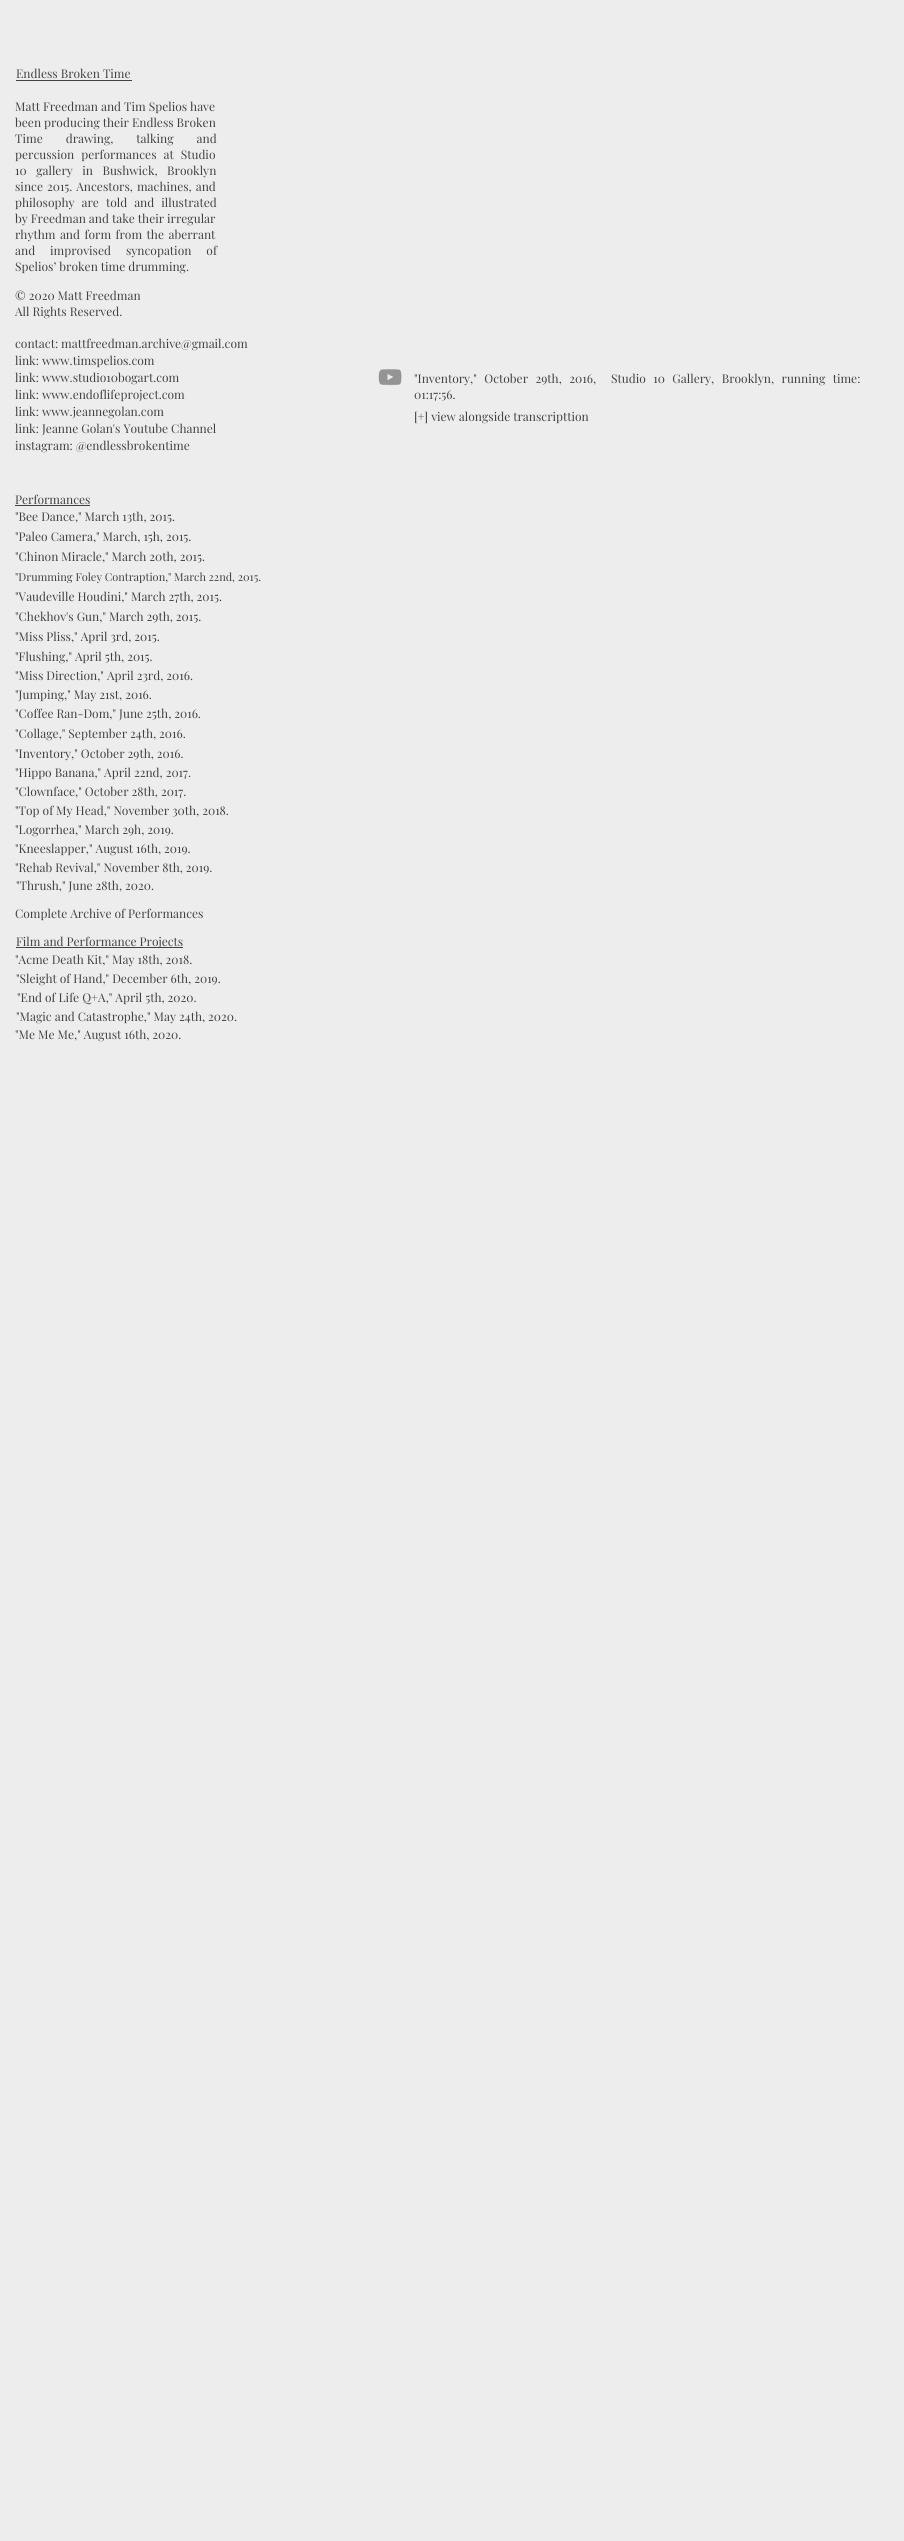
import math
import cairo

surface = cairo.ImageSurface(cairo.FORMAT_RGB24, 904, 2541)
cr = cairo.Context(surface)
options = cairo.FontOptions()
options.set_hint_metrics(cairo.HINT_METRICS_OFF)
options.set_hint_style(cairo.HINT_STYLE_NONE)
cr.set_font_options(options)
cr.set_miter_limit(4)


def rgb(code):
    cr.set_source_rgb(*(v / 255 for v in bytes.fromhex(code[-6:])))


def tracked(x, y, s, letter, word):
    cr.move_to(x, y)
    for ch in s:
        cr.show_text(ch)
        cr.rel_move_to(letter + word * (ch == ' '), 0)


def image(path, x, y, w, h):
    cr.save()
    cr.set_source_surface(cairo.ImageSurface.create_from_png(path), x, y)
    cr.rectangle(x, y, w, h)
    cr.fill()
    cr.restore()


rgb("#ededed")
cr.paint()
for x, y, w, h, color in [
    (16, 80, 116, 1, "#424242"),
    (15, 505, 75, 1, "#414141"),
    (16, 947, 167, 1, "#414141"),
]:
    rgb(color)
    cr.rectangle(x, y, w, h)
    cr.fill()
image("img/1.png", 378, 369, 24, 17)
cr.select_font_face("Playfair Display")
cr.set_font_size(12)
for x, y, s in [
    (16, 78, "Endless Broken Time"),
    (15, 111, "Matt Freedman and Tim Spelios have"),
    (15, 127, "been producing their Endless Broken"),
]:
    cr.move_to(x, y)
    cr.show_text(s)
tracked(15, 143, "Time drawing, talking and", 0, 20)
tracked(15, 159, "percussion performances at Studio", 0, 4)
tracked(15, 175, "10 gallery in Bushwick, Brooklyn", 0, 6.5)
tracked(15, 191, "since 2015. Ancestors, machines, and", 0, 1)
tracked(15, 207, "philosophy are told and illustrated", 0, 4)
cr.move_to(15, 223)
cr.show_text("by Freedman and take their irregular")
tracked(15, 239, "rhythm and form from the aberrant", 0, 1.5)
tracked(15, 255, "and improvised syncopation of", 0, 12)
for x, y, s in [
    (15, 271, "Spelios’ broken time drumming."),
    (15, 300, "© 2020 Matt Freedman"),
    (15, 316, "All Rights Reserved."),
    (15, 348, "contact: mattfreedman.archive@gmail.com"),
    (15, 365, "link: www.timspelios.com"),
    (15, 382, "link: www.studio10bogart.com"),
    (15, 399, "link: www.endoflifeproject.com"),
    (15, 416, "link: www.jeannegolan.com"),
    (15, 433, "link: Jeanne Golan's Youtube Channel"),
    (15, 450, "instagram: @endlessbrokentime"),
    (15, 504, "Performances"),
    (15, 521, "\"Bee Dance,\" March 13th, 2015."),
    (15, 541, "\"Paleo Camera,\" March, 15h, 2015."),
    (15, 561, "\"Chinon Miracle,\" March 20th, 2015."),
]:
    cr.move_to(x, y)
    cr.show_text(s)
cr.set_font_size(11)
cr.move_to(15, 581)
cr.show_text("\"Drumming Foley Contraption,\" March 22nd, 2015.")
cr.set_font_size(12)
for x, y, s in [
    (15, 601, "\"Vaudeville Houdini,\" March 27th, 2015."),
    (15, 621, "\"Chekhov's Gun,\" March 29th, 2015."),
    (15, 641, "\"Miss Pliss,\" April 3rd, 2015."),
    (15, 661, "\"Flushing,\" April 5th, 2015."),
    (15, 680, "\"Miss Direction,\" April 23rd, 2016."),
    (15, 699, "\"Jumping,\" May 21st, 2016."),
    (15, 718, "\"Coffee Ran-Dom,\" June 25th, 2016."),
    (15, 738, "\"Collage,\" September 24th, 2016."),
    (15, 758, "\"Inventory,\" October 29th, 2016."),
    (15, 777, "\"Hippo Banana,\" April 22nd, 2017."),
    (15, 796, "\"Clownface,\" October 28th, 2017."),
    (15, 815, "\"Top of My Head,\" November 30th, 2018."),
    (15, 834, "\"Logorrhea,\" March 29h, 2019."),
    (15, 853, "\"Kneeslapper,\" August 16th, 2019."),
    (15, 872, "\"Rehab Revival,\" November 8th, 2019."),
    (16, 890, "\"Thrush,\" June 28th, 2020."),
    (15, 918, "Complete Archive of Performances"),
    (16, 946, "Film and Performance Projects"),
    (15, 964, "\"Acme Death Kit,\" May 18th, 2018."),
    (16, 983, "\"Sleight of Hand,\" December 6th, 2019."),
    (17, 1002, "\"End of Life Q+A,\" April 5th, 2020."),
    (16, 1021, "\"Magic and Catastrophe,\" May 24th, 2020."),
    (15, 1039, "\"Me Me Me,\" August 16th, 2020."),
]:
    cr.move_to(x, y)
    cr.show_text(s)
tracked(414, 383, "\"Inventory,\" October 29th, 2016,  Studio 10 Gallery, Brooklyn, running time:", 0, 4.5)
cr.move_to(414, 399)
cr.show_text("01:17:56.")
cr.move_to(414, 421)
cr.show_text("[+] view alongside transcripttion")
surface.write_to_png("page.png")
